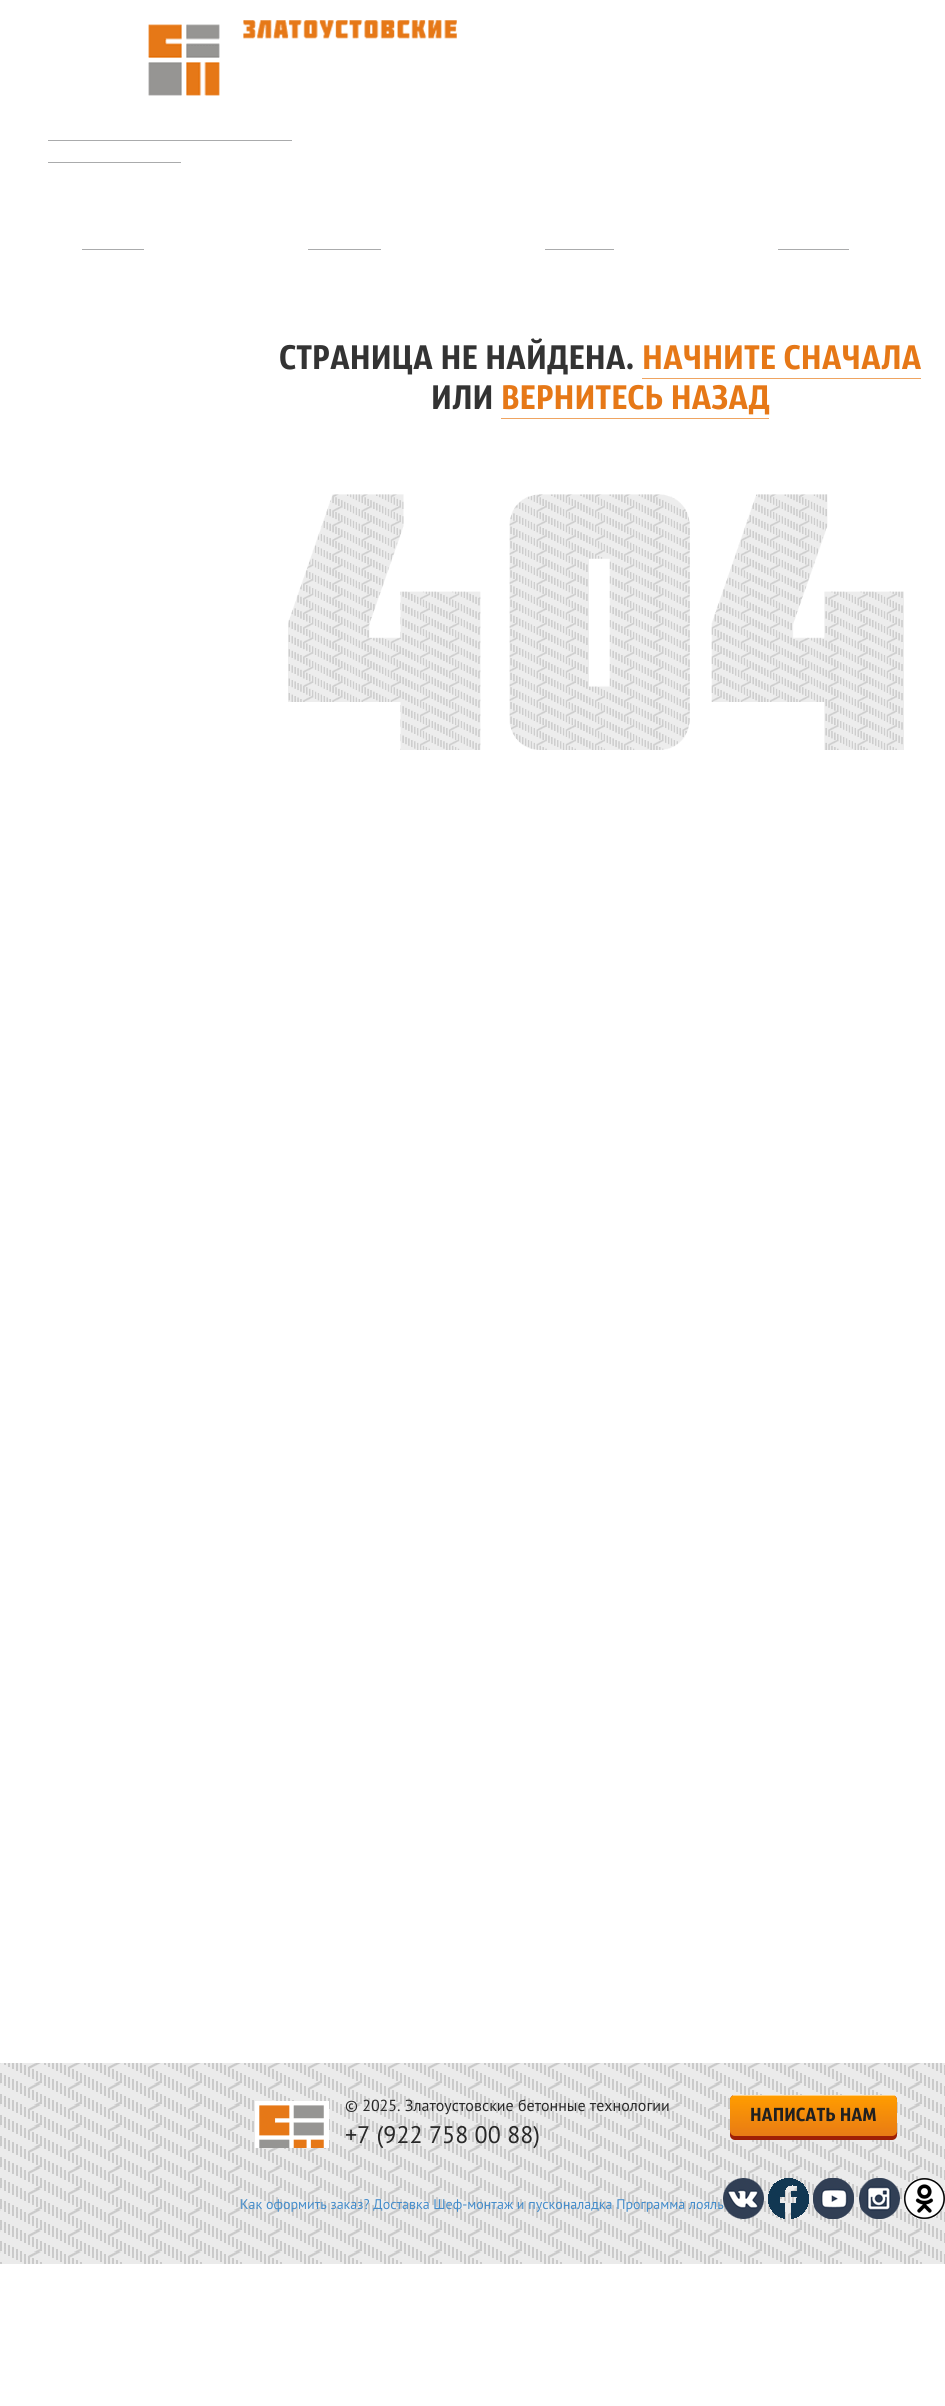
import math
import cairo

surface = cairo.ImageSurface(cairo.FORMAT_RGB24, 945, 2406)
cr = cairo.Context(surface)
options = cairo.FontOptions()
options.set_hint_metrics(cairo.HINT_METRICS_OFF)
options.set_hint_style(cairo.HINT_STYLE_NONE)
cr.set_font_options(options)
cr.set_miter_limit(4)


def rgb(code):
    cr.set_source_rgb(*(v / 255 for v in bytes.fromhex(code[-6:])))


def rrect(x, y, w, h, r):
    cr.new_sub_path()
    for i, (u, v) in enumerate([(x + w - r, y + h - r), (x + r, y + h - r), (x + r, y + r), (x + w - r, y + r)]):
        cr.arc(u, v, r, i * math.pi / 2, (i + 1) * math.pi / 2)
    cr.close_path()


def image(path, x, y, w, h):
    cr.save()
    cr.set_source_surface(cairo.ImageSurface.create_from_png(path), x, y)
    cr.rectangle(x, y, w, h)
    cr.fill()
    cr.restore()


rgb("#ffffff")
cr.paint()
image("img/1.png", 148, 20, 309, 76)
for x, y, w, h, color in [
    (48, 140, 244, 1, "#aaabac"),
    (48, 162, 133, 1, "#aaabac"),
    (82, 249, 62, 1, "#aaabac"),
    (308, 249, 73, 1, "#aaabac"),
    (545, 249, 69, 1, "#aaabac"),
    (778, 249, 71, 1, "#aaabac"),
    (642, 378, 279, 1, "#efa461"),
    (501, 418, 268, 1, "#efa461"),
]:
    rgb(color)
    cr.rectangle(x, y, w, h)
    cr.fill()
image("img/2.png", 288, 494, 616, 256)
image("img/3.png", 0, 2063, 945, 201)
image("img/4.png", 255, 2101, 74, 47)
rgb("#9e1f06")
rrect(730, 2095, 167, 45, 5)
cr.fill()
cr.save()
rrect(730, 2095, 167, 41, 5)
cr.clip()
gradient = cairo.LinearGradient(814, 2056, 814, 2096)
gradient.add_color_stop_rgba(0, 1, 0.612, 0, 1)
gradient.add_color_stop_rgba(1, 0.91, 0.482, 0.082, 1)
cr.set_source(gradient)
cr.rectangle(730, 2095, 3, 1)
cr.fill()
gradient = cairo.LinearGradient(814, 2096, 814, 2136)
gradient.add_color_stop_rgba(0, 1, 0.612, 0, 1)
gradient.add_color_stop_rgba(1, 0.91, 0.482, 0.082, 1)
cr.set_source(gradient)
cr.new_path()
cr.move_to(730, 2096)
cr.line_to(897, 2096)
cr.line_to(897, 2131)
cr.curve_to(897, 2134, 895, 2136, 892, 2136)
cr.line_to(735, 2136)
cr.curve_to(732, 2136, 730, 2134, 730, 2131)
cr.close_path()
cr.fill()
cr.restore()
rgb("#ffce80")
cr.rectangle(733, 2095, 162, 1)
cr.fill()
image("img/6.png", 768, 2178, 41, 41)
image("img/7.png", 813, 2178, 41, 41)
image("img/8.png", 859, 2178, 41, 41)
image("img/9.png", 904, 2178, 41, 41)
cr.select_font_face("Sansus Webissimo")
cr.set_font_size(36)
rgb("#333333")
cr.move_to(279, 369)
cr.show_text("СТРАНИЦА НЕ НАЙДЕНА.")
rgb("#e67817")
cr.move_to(642, 369)
cr.show_text("НАЧНИТЕ СНАЧАЛА")
rgb("#333333")
cr.move_to(431, 409)
cr.show_text("ИЛИ")
rgb("#e67817")
cr.move_to(501, 409)
cr.show_text("ВЕРНИТЕСЬ НАЗАД")
cr.select_font_face("PT Sans")
cr.set_font_size(16)
rgb("#292929")
cr.move_to(345, 2111)
cr.show_text("© 2025. Златоустовские бетонные технологии")
cr.set_font_size(24)
cr.move_to(345, 2143)
cr.show_text("+7 (922 758 00 88)")
cr.select_font_face("Sansus Webissimo")
cr.set_font_size(20)
rgb("#202020")
cr.move_to(750, 2121)
cr.show_text("НАПИСАТЬ НАМ")
cr.select_font_face("PT Sans")
cr.set_font_size(14)
rgb("#428bca")
cr.move_to(240, 2209)
cr.show_text("Как оформить заказ? Доставка Шеф-монтаж и пусконаладка Программа лояль")
image("img/5.png", 723, 2178, 41, 41)
surface.write_to_png("page.png")
